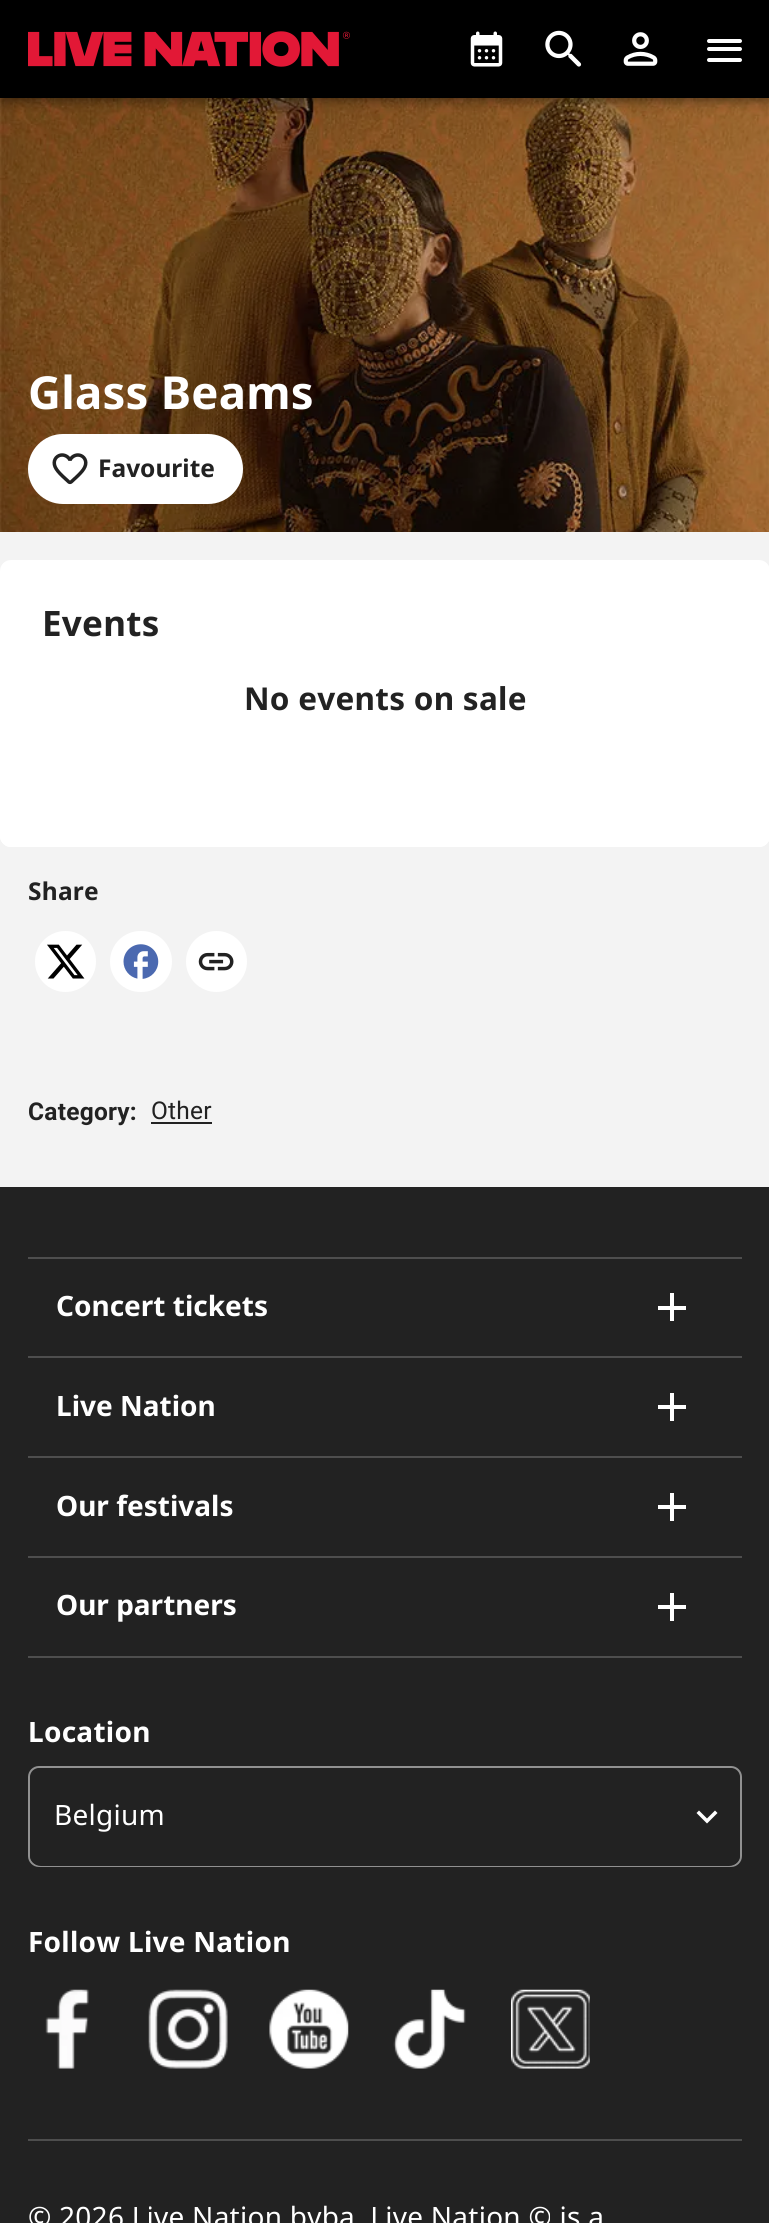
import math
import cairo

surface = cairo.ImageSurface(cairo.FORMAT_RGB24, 769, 2223)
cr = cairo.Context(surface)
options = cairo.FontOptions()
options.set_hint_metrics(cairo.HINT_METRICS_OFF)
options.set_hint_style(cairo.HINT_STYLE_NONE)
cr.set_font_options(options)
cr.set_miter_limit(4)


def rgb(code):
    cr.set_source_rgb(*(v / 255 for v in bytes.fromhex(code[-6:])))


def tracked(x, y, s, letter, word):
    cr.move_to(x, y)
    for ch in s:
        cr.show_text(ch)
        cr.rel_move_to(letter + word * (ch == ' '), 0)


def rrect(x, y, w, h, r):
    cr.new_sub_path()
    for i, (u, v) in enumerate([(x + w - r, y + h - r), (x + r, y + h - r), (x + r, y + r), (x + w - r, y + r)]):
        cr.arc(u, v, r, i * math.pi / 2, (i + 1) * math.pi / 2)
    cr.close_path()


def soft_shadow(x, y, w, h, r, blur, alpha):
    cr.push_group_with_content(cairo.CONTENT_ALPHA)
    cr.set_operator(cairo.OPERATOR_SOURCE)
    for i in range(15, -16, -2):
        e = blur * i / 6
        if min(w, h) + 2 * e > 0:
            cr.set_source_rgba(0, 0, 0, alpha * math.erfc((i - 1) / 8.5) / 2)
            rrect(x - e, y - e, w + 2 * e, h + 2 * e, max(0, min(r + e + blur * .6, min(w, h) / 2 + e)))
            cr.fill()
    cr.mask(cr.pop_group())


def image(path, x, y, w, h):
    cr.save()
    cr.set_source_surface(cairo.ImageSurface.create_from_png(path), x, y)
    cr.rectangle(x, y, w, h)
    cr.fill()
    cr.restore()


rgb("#f3f3f3")
cr.paint()
image("img/5.png", 0, 98, 769, 434)
rgb("#000000")
soft_shadow(0, 2, 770, 98, 0, 9, 0.12)
soft_shadow(0, 7, 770, 98, 0, 4.5, 0.14)
soft_shadow(2, 5, 766, 95, 0, 3.5, 0.2)
rgb("#000000")
cr.rectangle(0, 0, 769, 98)
cr.fill()
image("img/1.png", 28, 31, 322, 36)
image("img/2.png", 470, 31, 33, 36)
image("img/3.png", 545, 30, 37, 37)
image("img/4.png", 623, 32, 35, 34)
rgb("#ffffff")
rrect(707, 39, 35, 4, 2)
cr.fill()
rrect(707, 47, 35, 4, 2)
cr.fill()
rrect(707, 58, 35, 4, 2)
cr.fill()
rrect(28, 434, 215, 70, 35)
cr.fill()
image("img/6.png", 52, 453, 36, 32)
rrect(0, 560, 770, 287, 11)
cr.fill()
cr.new_path()
cr.move_to(0, 676)
cr.line_to(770, 676)
cr.line_to(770, 836)
cr.curve_to(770, 842, 765, 847, 759, 847)
cr.line_to(11, 847)
cr.curve_to(5, 847, 0, 842, 0, 836)
cr.close_path()
cr.fill()
cr.arc(65.5, 961.5, 30.5, 0, 2 * math.pi)
cr.fill()
image("img/7.png", 47, 944, 38, 35)
rrect(110, 931, 62, 61, 30.5)
cr.fill()
image("img/8.png", 123, 944, 36, 35)
cr.arc(216.5, 961.5, 30.5, 0, 2 * math.pi)
cr.fill()
image("img/9.png", 198, 952, 36, 19)
for x, y, w, h, color in [
    (151, 1122, 61, 2, "#222222"),
    (0, 1187, 769, 1036, "#222222"),
    (28, 1257, 714, 2, "#4e4e4e"),
    (658, 1306, 28, 4, "#ffffff"),
    (670, 1293, 4, 28, "#ffffff"),
    (28, 1356, 714, 2, "#4e4e4e"),
    (658, 1405, 28, 4, "#ffffff"),
    (670, 1393, 4, 28, "#ffffff"),
    (28, 1456, 714, 2, "#4e4e4e"),
    (658, 1505, 28, 4, "#ffffff"),
    (670, 1493, 4, 28, "#ffffff"),
    (28, 1556, 714, 2, "#4e4e4e"),
    (28, 1656, 714, 2, "#4e4e4e"),
    (658, 1605, 28, 4, "#ffffff"),
    (670, 1593, 4, 28, "#ffffff"),
]:
    rgb(color)
    cr.rectangle(x, y, w, h)
    cr.fill()
rrect(29, 1767, 712, 99, 10)
rgb("#919191")
cr.stroke()
rgb("#222222")
rrect(30, 1768, 710, 98, 11)
cr.fill()
rgb("#ffffff")
cr.new_path()
cr.move_to(699, 1810.5)
cr.line_to(707, 1818.5)
cr.line_to(715, 1810.5)
cr.line_to(717.5, 1813)
cr.line_to(707, 1823.5)
cr.line_to(696.5, 1813)
cr.close_path()
cr.fill()
image("img/10.png", 45, 1989, 44, 80)
image("img/11.png", 148, 1989, 80, 80)
image("img/12.png", 269, 1989, 80, 80)
image("img/13.png", 393, 1989, 73, 80)
image("img/14.png", 511, 1989, 79, 80)
rgb("#4e4e4e")
cr.rectangle(28, 2139, 714, 2)
cr.fill()
cr.select_font_face("Noto Sans", cairo.FONT_SLANT_NORMAL, cairo.FONT_WEIGHT_BOLD)
cr.set_font_size(45.5)
rgb("#ffffff")
tracked(28, 409, "Glass Beams", 0.25, 0)
cr.set_font_size(24.5)
rgb("#222222")
cr.move_to(98, 477)
cr.show_text("Favourite")
cr.set_font_size(35)
tracked(42, 636, "Events", 0.25, 0)
cr.set_font_size(31.5)
tracked(244, 710, "No events on sale", 0.25, 0)
cr.set_font_size(24.5)
tracked(28, 900, "Share", 0.25, 0)
cr.select_font_face("Roboto", cairo.FONT_SLANT_NORMAL, cairo.FONT_WEIGHT_BOLD)
tracked(28, 1120, "Category:", 0.25, 0)
cr.select_font_face("Roboto")
tracked(151, 1119, "Other", 0.25, 0)
cr.select_font_face("Noto Sans", cairo.FONT_SLANT_NORMAL, cairo.FONT_WEIGHT_BOLD)
cr.set_font_size(28)
rgb("#ffffff")
for x, y, s in [
    (56, 1316, "Concert tickets"),
    (56, 1416, "Live Nation"),
    (56, 1516, "Our festivals"),
    (56, 1615, "Our partners"),
]:
    cr.move_to(x, y)
    cr.show_text(s)
tracked(28, 1742, "Location", 0.25, 0)
cr.select_font_face("Noto Sans")
tracked(54, 1825, "Belgium", 0.25, 0)
cr.select_font_face("Noto Sans", cairo.FONT_SLANT_NORMAL, cairo.FONT_WEIGHT_BOLD)
tracked(28, 1952, "Follow Live Nation", 0.25, 0)
cr.select_font_face("Noto Sans")
tracked(28, 2227, "© 2026 Live Nation bvba. Live Nation © is a", 0.25, 0)
surface.write_to_png("page.png")
